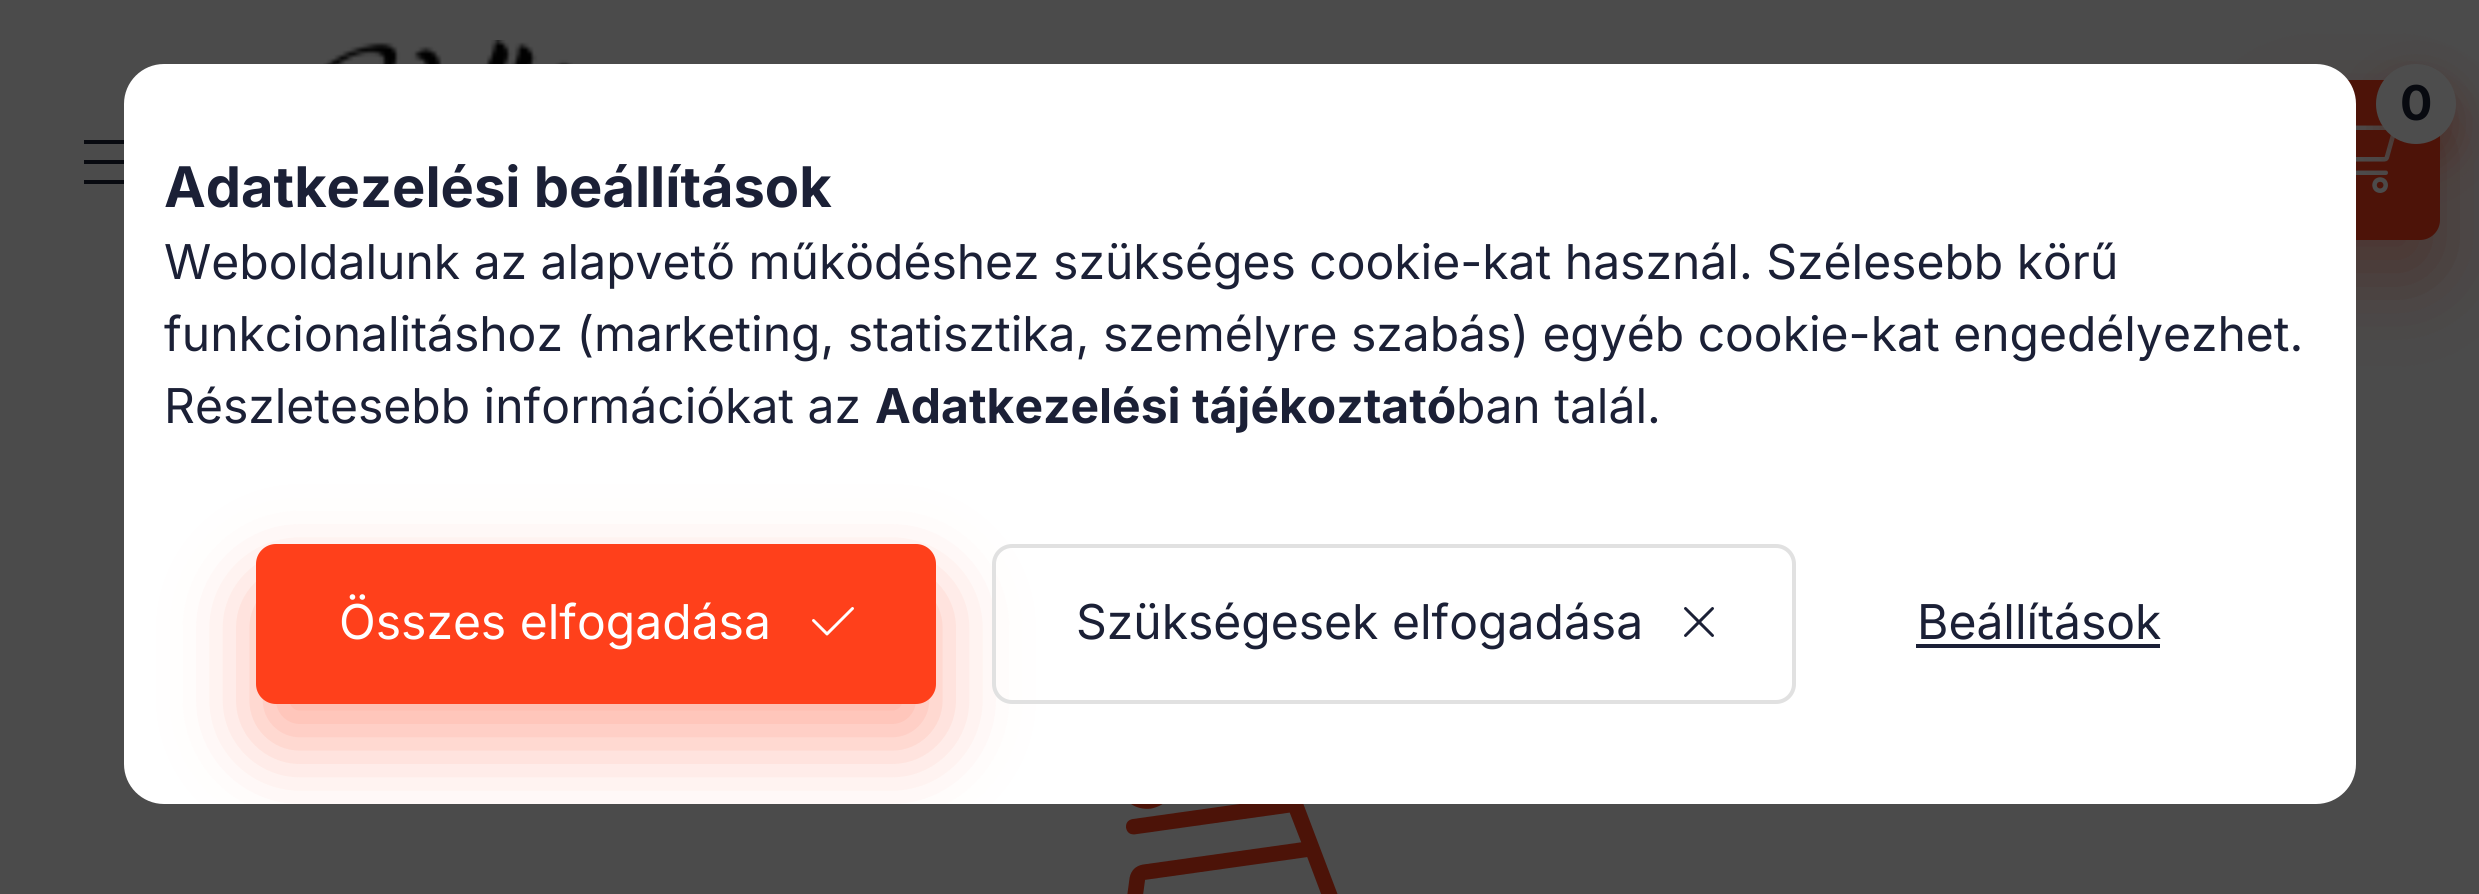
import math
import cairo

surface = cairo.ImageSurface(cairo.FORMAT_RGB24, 2479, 894)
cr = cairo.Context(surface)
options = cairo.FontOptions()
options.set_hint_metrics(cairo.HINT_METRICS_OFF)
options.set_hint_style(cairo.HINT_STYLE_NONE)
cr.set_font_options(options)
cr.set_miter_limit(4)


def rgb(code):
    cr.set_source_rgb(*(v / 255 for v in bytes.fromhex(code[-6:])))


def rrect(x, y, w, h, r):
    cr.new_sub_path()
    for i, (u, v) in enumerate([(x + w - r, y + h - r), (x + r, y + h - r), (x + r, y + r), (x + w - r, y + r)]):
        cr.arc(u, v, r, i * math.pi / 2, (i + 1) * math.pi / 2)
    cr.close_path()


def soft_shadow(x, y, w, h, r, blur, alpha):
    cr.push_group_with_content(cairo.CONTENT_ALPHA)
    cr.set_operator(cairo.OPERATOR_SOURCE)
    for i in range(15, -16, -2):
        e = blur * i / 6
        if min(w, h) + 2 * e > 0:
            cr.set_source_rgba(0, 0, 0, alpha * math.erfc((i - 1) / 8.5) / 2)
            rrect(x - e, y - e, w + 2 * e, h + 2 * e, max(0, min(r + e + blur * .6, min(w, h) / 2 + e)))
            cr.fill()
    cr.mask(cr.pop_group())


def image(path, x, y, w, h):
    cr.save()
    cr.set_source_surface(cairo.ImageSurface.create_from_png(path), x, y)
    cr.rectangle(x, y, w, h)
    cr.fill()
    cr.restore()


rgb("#4b4b4b")
cr.paint()
image("img/1.png", 323, 40, 250, 24)
for x, y, w, h, color in [
    (84, 140, 40, 4, "#080a10"),
    (84, 160, 40, 4, "#080a10"),
    (84, 180, 40, 4, "#080a10"),
]:
    rgb(color)
    cr.rectangle(x, y, w, h)
    cr.fill()
rgb("#4d1308")
soft_shadow(2272, 120, 168, 160, 20, 40, 0.4)
rgb("#4d1308")
rrect(2272, 80, 168, 160, 20)
cr.fill()
image("img/2.png", 2356, 125, 39, 68)
rgb("#4d1308")
soft_shadow(2376, 84, 80, 80, 40, 20, 0.4)
rgb("#4d4d4d")
cr.arc(2416, 104, 40, 0, 2 * math.pi)
cr.fill()
image("img/3.png", 1126, 804, 212, 90)
rgb("#ffffff")
rrect(124, 64, 2232, 740, 40)
cr.fill()
cr.save()
rrect(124, 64, 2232, 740, 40)
cr.clip()
rgb("#ff401b")
soft_shadow(256, 584, 680, 160, 20, 40, 0.4)
cr.restore()
rgb("#ff401b")
rrect(258, 546, 676, 156, 18)
cr.fill_preserve()
cr.set_line_width(4)
cr.stroke()
image("img/4.png", 812, 607, 42, 29)
rrect(994, 546, 800, 156, 18)
rgb("#e1e1e1")
cr.stroke()
image("img/5.png", 1684, 607, 30, 30)
rgb("#1b2036")
cr.rectangle(1916, 644, 244, 4)
cr.fill()
cr.select_font_face("Inter", cairo.FONT_SLANT_NORMAL, cairo.FONT_WEIGHT_BOLD)
cr.set_font_size(48)
rgb("#080a10")
cr.move_to(2400, 120)
cr.show_text("0")
cr.set_font_size(56)
rgb("#1b2036")
cr.move_to(164, 207)
cr.show_text("Adatkezelési beállítások")
cr.select_font_face("Inter")
cr.set_font_size(48)
for x, y, s in [
    (164, 279, "Weboldalunk az alapvető működéshez szükséges cookie-kat használ. Szélesebb körű"),
    (164, 351, "funkcionalitáshoz (marketing, statisztika, személyre szabás) egyéb cookie-kat engedélyezhet."),
    (164, 423, "Részletesebb információkat az"),
]:
    cr.move_to(x, y)
    cr.show_text(s)
cr.select_font_face("Inter", cairo.FONT_SLANT_NORMAL, cairo.FONT_WEIGHT_BOLD)
cr.move_to(875, 423)
cr.show_text("Adatkezelési tájékoztató")
cr.select_font_face("Inter")
cr.move_to(1456, 423)
cr.show_text("ban talál.")
rgb("#ffffff")
cr.move_to(339, 639)
cr.show_text("Összes elfogadása")
rgb("#1b2036")
cr.move_to(1076, 639)
cr.show_text("Szükségesek elfogadása")
cr.move_to(1917, 639)
cr.show_text("Beállítások")
surface.write_to_png("page.png")
